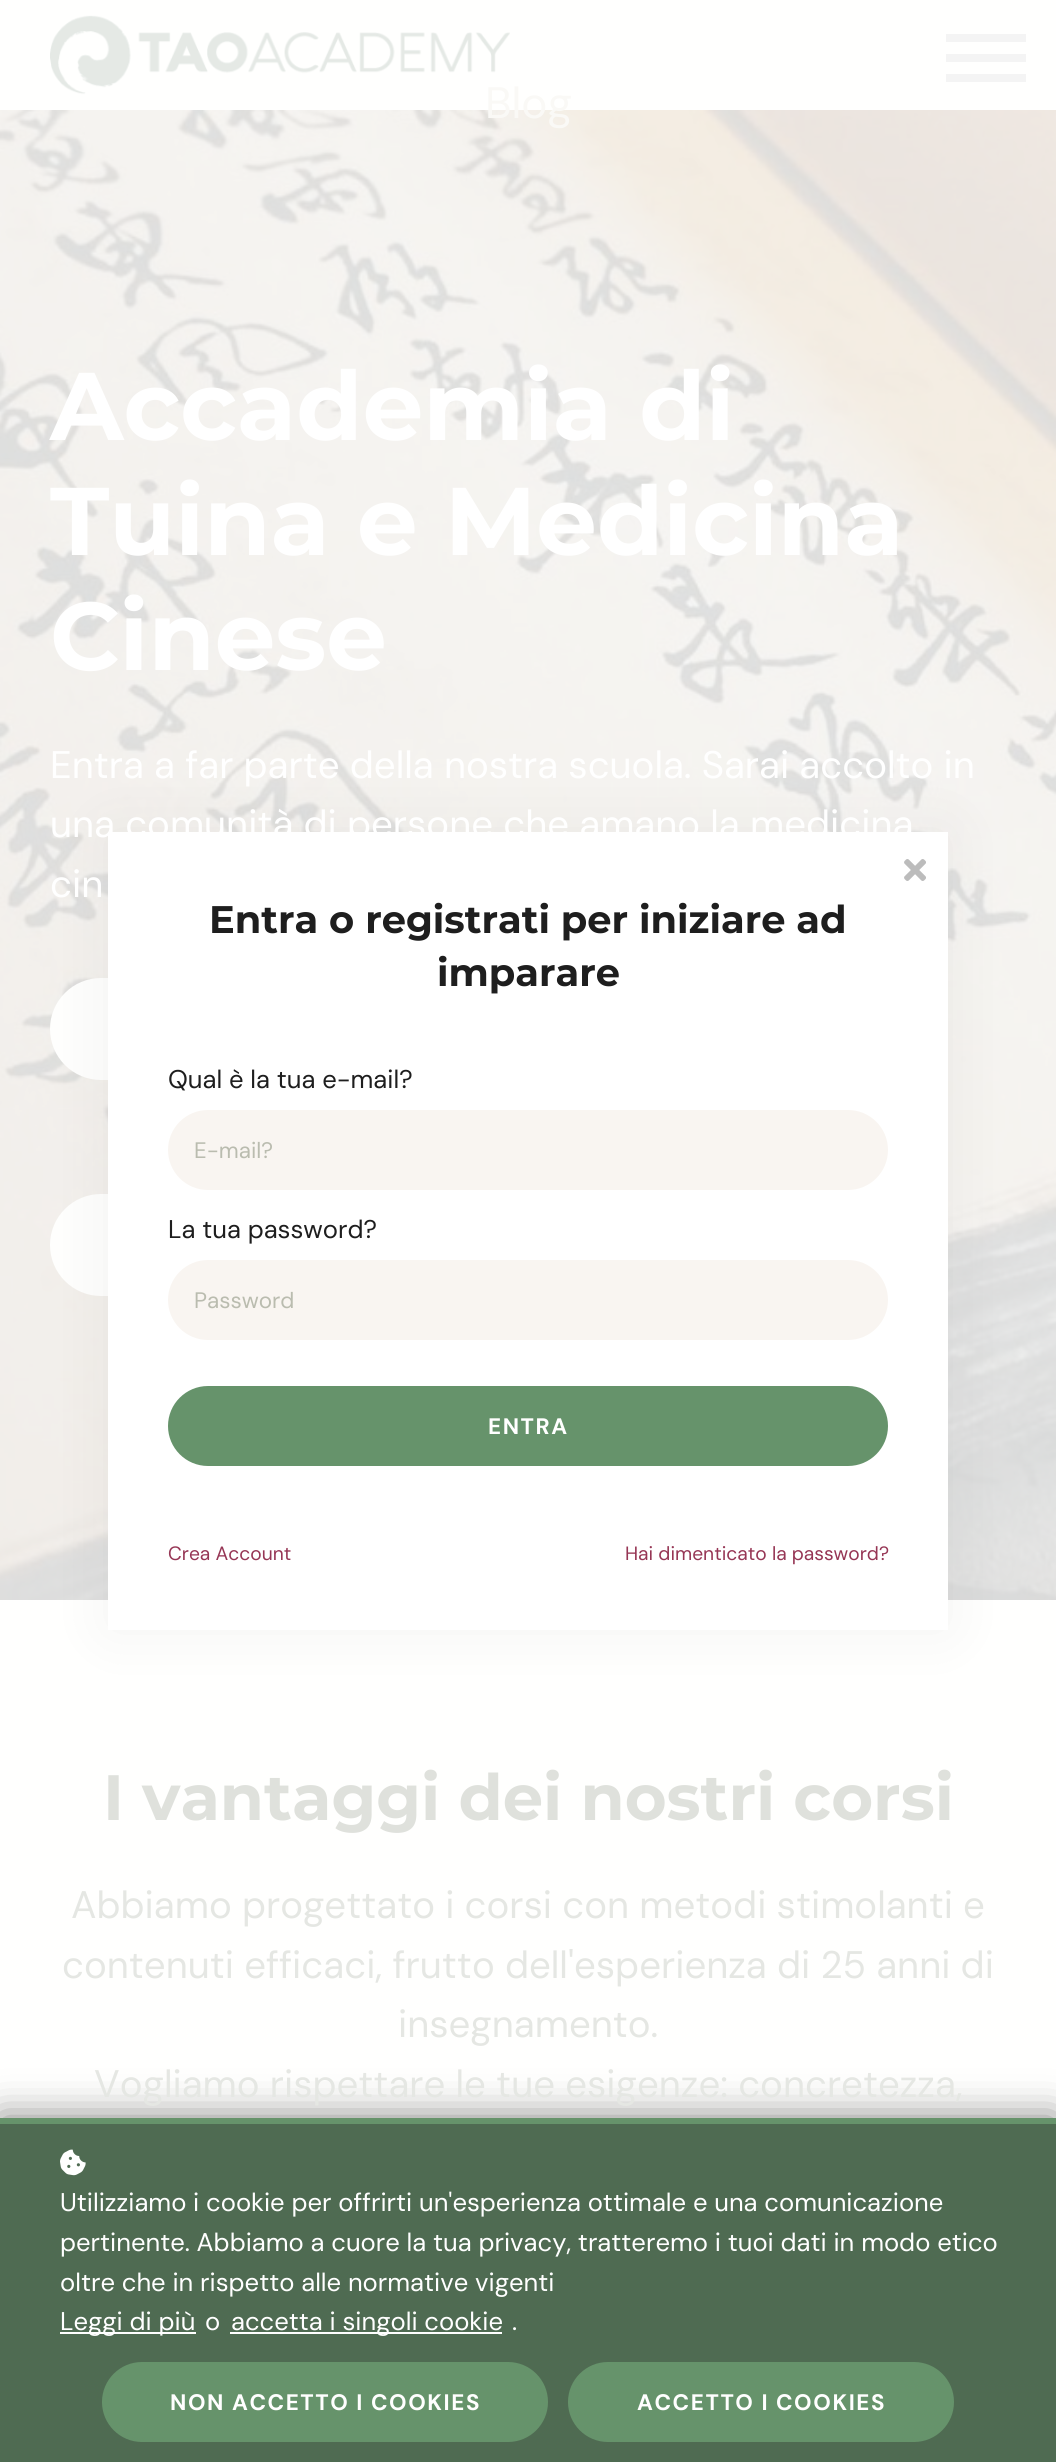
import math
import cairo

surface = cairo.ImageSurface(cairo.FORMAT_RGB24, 1056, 2462)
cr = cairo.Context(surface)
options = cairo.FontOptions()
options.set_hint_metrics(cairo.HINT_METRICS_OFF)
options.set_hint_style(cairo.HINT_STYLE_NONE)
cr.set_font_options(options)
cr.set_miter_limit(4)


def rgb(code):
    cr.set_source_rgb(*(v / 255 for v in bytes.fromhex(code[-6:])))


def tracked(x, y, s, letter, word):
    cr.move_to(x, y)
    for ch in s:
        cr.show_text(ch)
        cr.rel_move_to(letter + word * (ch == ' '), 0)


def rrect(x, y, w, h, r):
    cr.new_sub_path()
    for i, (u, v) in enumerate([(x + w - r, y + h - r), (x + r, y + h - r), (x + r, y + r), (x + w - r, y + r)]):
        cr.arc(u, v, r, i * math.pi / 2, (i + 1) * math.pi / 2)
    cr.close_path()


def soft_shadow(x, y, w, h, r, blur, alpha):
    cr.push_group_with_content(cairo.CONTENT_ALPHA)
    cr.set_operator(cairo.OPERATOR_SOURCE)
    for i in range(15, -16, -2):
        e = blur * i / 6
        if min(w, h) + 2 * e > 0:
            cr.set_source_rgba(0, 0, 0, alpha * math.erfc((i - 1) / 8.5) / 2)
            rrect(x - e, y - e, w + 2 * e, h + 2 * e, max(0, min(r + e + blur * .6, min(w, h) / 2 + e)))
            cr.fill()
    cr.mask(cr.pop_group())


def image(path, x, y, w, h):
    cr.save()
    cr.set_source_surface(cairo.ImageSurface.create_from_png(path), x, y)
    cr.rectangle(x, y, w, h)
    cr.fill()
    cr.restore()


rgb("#fffffe")
cr.paint()
image("img/1.png", 50, 15, 460, 80)
for x, y, w, h, color in [
    (946, 74, 80, 8, "#f4f4f4"),
    (946, 34, 80, 8, "#f4f4f4"),
    (946, 54, 80, 8, "#f4f4f4"),
]:
    rgb(color)
    cr.rectangle(x, y, w, h)
    cr.fill()
image("img/2.png", 0, 110, 1056, 1490)
rgb("#fefefd")
rrect(50, 978, 528, 102, 51)
cr.fill()
rrect(50, 1194, 418, 102, 51)
cr.fill()
rgb("#000000")
soft_shadow(108, 832, 840, 798, 0, 30, 0.05)
rgb("#ffffff")
cr.rectangle(108, 832, 840, 798)
cr.fill()
image("img/3.png", 904, 859, 22, 22)
rgb("#f9f5f1")
rrect(170, 1112, 716, 76, 38)
cr.fill_preserve()
cr.set_line_width(4)
cr.stroke()
rrect(170, 1262, 716, 76, 38)
cr.fill_preserve()
cr.stroke()
rgb("#66936b")
rrect(168, 1386, 720, 80, 40)
cr.fill()
rgb("#000000")
soft_shadow(0, 2118, 1056, 344, 0, 20, 0.5)
rgb("#4f6b52")
cr.rectangle(0, 2124, 1056, 338)
cr.fill()
rgb("#66936b")
cr.rectangle(0, 2118, 1056, 6)
cr.fill()
image("img/4.png", 60, 2149, 26, 27)
rgb("#ffffff")
cr.rectangle(60, 2332, 136, 2)
cr.fill()
cr.rectangle(230, 2332, 272, 2)
cr.fill()
rgb("#66936b")
rrect(102, 2362, 446, 80, 40)
cr.fill()
rrect(568, 2362, 386, 80, 40)
cr.fill()
cr.select_font_face("DM Sans")
cr.set_font_size(44)
rgb("#faf9f6")
cr.move_to(485, 118)
cr.show_text("Blog")
cr.select_font_face("Montserrat", cairo.FONT_SLANT_NORMAL, cairo.FONT_WEIGHT_BOLD)
cr.set_font_size(96)
rgb("#ffffff")
for x, y, s in [
    (50, 440, "Accademia di"),
    (50, 555, "Tuina e Medicina"),
    (50, 670, "Cinese"),
]:
    cr.move_to(x, y)
    cr.show_text(s)
cr.select_font_face("DM Sans")
cr.set_font_size(38.4)
for x, y, s in [
    (50, 778, "Entra a far parte della nostra scuola. Sarai accolto in"),
    (50, 837, "una comunità di persone che amano la medicina"),
    (50, 897, "cin"),
]:
    cr.move_to(x, y)
    cr.show_text(s)
cr.select_font_face("Montserrat", cairo.FONT_SLANT_NORMAL, cairo.FONT_WEIGHT_BOLD)
cr.set_font_size(64)
rgb("#dfe1dc")
cr.move_to(103, 1820)
cr.show_text("I vantaggi dei nostri corsi")
cr.select_font_face("DM Sans")
cr.set_font_size(38.4)
rgb("#e5e7e3")
for x, y, s in [
    (71, 1918, "Abbiamo progettato i corsi con metodi stimolanti e"),
    (62, 1978, "contenuti efficaci, frutto dell'esperienza di 25 anni di"),
    (398, 2037, "insegnamento."),
    (94, 2097, "Vogliamo rispettare le tue esigenze: concretezza,"),
]:
    cr.move_to(x, y)
    cr.show_text(s)
cr.select_font_face("Montserrat", cairo.FONT_SLANT_NORMAL, cairo.FONT_WEIGHT_BOLD)
rgb("#1e1e1e")
cr.move_to(209, 933)
cr.show_text("Entra o registrati per iniziare ad")
cr.move_to(437, 986)
cr.show_text("imparare")
cr.select_font_face("DM Sans")
cr.set_font_size(25.6)
cr.move_to(168, 1088)
cr.show_text("Qual è la tua e-mail?")
cr.set_font_size(22.4)
rgb("#babcaf")
cr.move_to(194, 1158)
cr.show_text("E-mail?")
cr.set_font_size(25.6)
rgb("#1e1e1e")
cr.move_to(168, 1238)
cr.show_text("La tua password?")
cr.set_font_size(22.4)
rgb("#babcaf")
cr.move_to(194, 1308)
cr.show_text("Password")
cr.select_font_face("DM Sans", cairo.FONT_SLANT_NORMAL, cairo.FONT_WEIGHT_BOLD)
rgb("#ffffff")
tracked(488, 1434, "ENTRA", 1.6, 0)
cr.select_font_face("DM Sans")
cr.set_font_size(19.25)
rgb("#963655")
cr.move_to(168, 1560)
cr.show_text("Crea Account")
cr.move_to(625, 1560)
cr.show_text("Hai dimenticato la password?")
cr.set_font_size(25.6)
rgb("#ffffff")
for x, y, s in [
    (60, 2211, "Utilizziamo i cookie per offrirti un'esperienza ottimale e una comunicazione"),
    (60, 2251, "pertinente. Abbiamo a cuore la tua privacy, tratteremo i tuoi dati in modo etico"),
    (60, 2291, "oltre che in rispetto alle normative vigenti"),
    (60, 2330, "Leggi di più"),
    (205, 2330, "o"),
    (231, 2330, "accetta i singoli cookie"),
    (512, 2330, "."),
]:
    cr.move_to(x, y)
    cr.show_text(s)
cr.select_font_face("DM Sans", cairo.FONT_SLANT_NORMAL, cairo.FONT_WEIGHT_BOLD)
cr.set_font_size(22.4)
tracked(170, 2410, "NON ACCETTO I COOKIES", 1.6, 0)
tracked(637, 2410, "ACCETTO I COOKIES", 1.6, 0)
surface.write_to_png("page.png")
